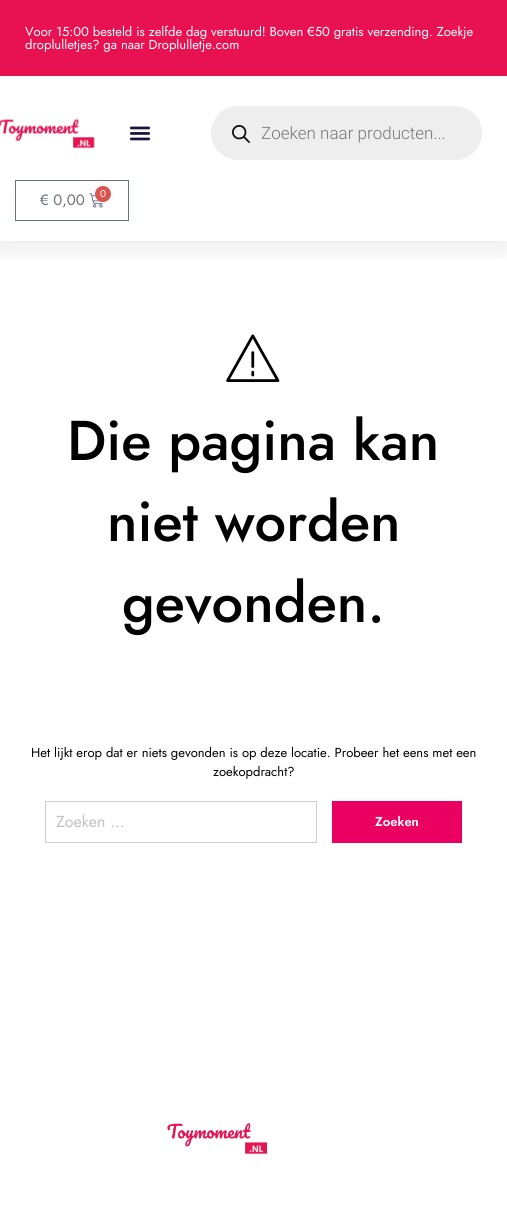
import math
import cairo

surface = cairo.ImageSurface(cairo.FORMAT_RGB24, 507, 1206)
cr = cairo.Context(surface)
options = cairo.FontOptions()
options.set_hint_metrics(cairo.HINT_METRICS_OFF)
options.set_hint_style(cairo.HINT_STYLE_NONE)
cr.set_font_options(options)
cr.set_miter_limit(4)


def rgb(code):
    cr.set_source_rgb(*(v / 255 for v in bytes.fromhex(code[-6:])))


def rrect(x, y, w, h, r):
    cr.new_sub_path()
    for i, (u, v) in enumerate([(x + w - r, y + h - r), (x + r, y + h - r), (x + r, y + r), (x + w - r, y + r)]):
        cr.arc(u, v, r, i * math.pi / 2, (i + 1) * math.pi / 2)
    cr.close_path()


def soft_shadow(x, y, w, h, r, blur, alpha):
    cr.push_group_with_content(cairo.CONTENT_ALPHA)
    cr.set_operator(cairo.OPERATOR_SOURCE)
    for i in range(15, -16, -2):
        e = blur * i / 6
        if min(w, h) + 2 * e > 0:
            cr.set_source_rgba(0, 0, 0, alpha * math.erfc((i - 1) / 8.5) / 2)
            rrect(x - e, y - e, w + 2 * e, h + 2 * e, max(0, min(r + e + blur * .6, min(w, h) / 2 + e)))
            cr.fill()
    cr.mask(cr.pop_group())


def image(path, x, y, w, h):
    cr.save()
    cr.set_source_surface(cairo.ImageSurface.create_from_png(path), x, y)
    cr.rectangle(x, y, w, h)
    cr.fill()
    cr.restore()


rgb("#ffffff")
cr.paint()
cr.save()
cr.rectangle(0, 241, 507, 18)
cr.clip()
rgb("#000000")
soft_shadow(0, 5, 507, 241, 0, 15, 0.1)
cr.restore()
rgb("#e81252")
cr.rectangle(0, 0, 507, 76)
cr.fill()
image("img/1.png", 0, 118, 95, 31)
image("img/2.png", 129, 126, 22, 15)
rgb("#eeeeee")
rrect(211, 106, 271, 54, 27)
cr.fill()
image("img/3.png", 232, 125, 18, 18)
cr.rectangle(15.5, 180.5, 113, 40)
rgb("#69727d")
cr.set_line_width(1)
cr.stroke()
image("img/4.png", 89, 193, 14, 15)
rgb("#d9534f")
cr.arc(103, 194, 8, 0, 2 * math.pi)
cr.fill()
image("img/5.png", 226, 334, 54, 48)
cr.rectangle(45.5, 801.5, 271, 41)
rgb("#cccccc")
cr.stroke()
rgb("#ea0061")
cr.rectangle(332, 801, 130, 42)
cr.fill()
image("img/6.png", 167, 1123, 100, 31)
cr.select_font_face("Jost")
cr.set_font_size(13)
rgb("#ffffff")
cr.move_to(25, 36)
cr.show_text("Voor 15:00 besteld is zelfde dag verstuurd! Boven €50 gratis verzending. Zoekje")
cr.move_to(25, 49)
cr.show_text("droplulletjes? ga naar Droplulletje.com")
cr.select_font_face("Roboto Light")
cr.set_font_size(17)
rgb("#777777")
cr.move_to(261, 139)
cr.show_text("Zoeken naar producten...")
cr.select_font_face("Jost")
cr.set_font_size(15)
rgb("#69727d")
cr.move_to(40, 205)
cr.show_text("€ 0,00")
cr.set_font_size(10)
rgb("#ffffff")
cr.move_to(100, 197)
cr.show_text("0")
cr.select_font_face("Jost Medium")
cr.set_font_size(56)
rgb("#000000")
for x, y, s in [
    (67, 460, "Die pagina kan"),
    (107, 541, "niet worden"),
    (122, 622, "gevonden."),
]:
    cr.move_to(x, y)
    cr.show_text(s)
cr.select_font_face("Jost")
cr.set_font_size(13)
cr.move_to(31, 757)
cr.show_text("Het lijkt erop dat er niets gevonden is op deze locatie. Probeer het eens met een")
cr.move_to(213, 776)
cr.show_text("zoekopdracht?")
cr.set_font_size(16)
rgb("#c2c2c2")
cr.move_to(56, 827)
cr.show_text("Zoeken …")
cr.select_font_face("Jost SemiBold")
cr.set_font_size(13)
rgb("#ffffff")
cr.move_to(375, 826)
cr.show_text("Zoeken")
surface.write_to_png("page.png")
